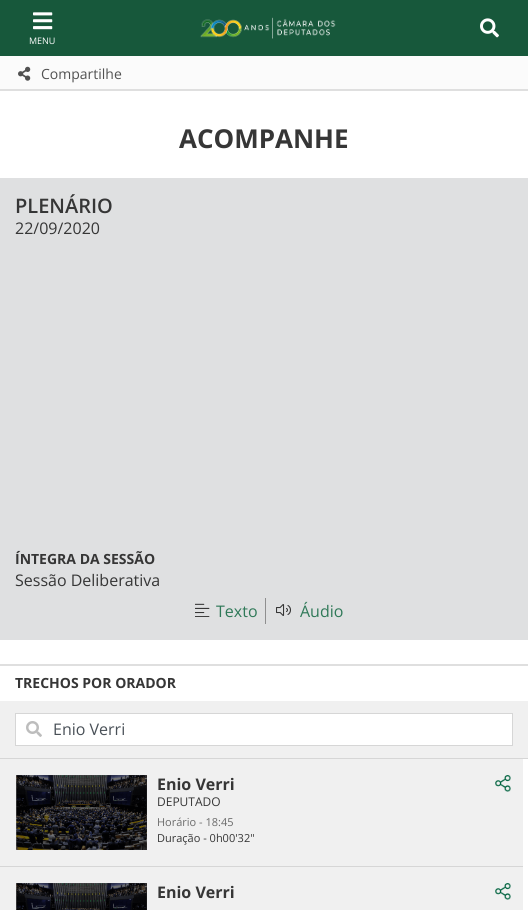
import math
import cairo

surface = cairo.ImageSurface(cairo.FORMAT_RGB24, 528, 910)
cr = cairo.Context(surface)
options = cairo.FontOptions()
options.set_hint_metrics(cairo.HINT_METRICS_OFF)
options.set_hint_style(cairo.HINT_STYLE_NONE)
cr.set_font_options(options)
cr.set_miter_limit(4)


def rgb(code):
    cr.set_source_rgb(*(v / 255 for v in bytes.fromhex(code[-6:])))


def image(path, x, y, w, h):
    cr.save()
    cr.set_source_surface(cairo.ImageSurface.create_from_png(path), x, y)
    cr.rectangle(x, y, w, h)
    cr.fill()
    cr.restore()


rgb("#ffffff")
cr.paint()
rgb("#17583b")
cr.rectangle(0, 0, 528, 56)
cr.fill()
image("img/1.png", 200, 17, 136, 22)
image("img/2.png", 480, 18, 19, 20)
image("img/3.png", 33, 12, 20, 18)
rgb("#fbfbfb")
cr.rectangle(0, 56, 528, 33)
cr.fill()
rgb("#dfdfdf")
cr.rectangle(0, 89, 528, 2)
cr.fill()
image("img/4.png", 18, 66, 13, 15)
rgb("#dfe0e1")
cr.rectangle(0, 178, 528, 462)
cr.fill()
rgb("#8f8f8f")
cr.rectangle(265, 598, 1, 26)
cr.fill()
image("img/5.png", 195, 603, 15, 14)
image("img/6.png", 276, 604, 15, 12)
for x, y, w, h, color in [
    (0, 664, 528, 2, "#dfdfdf"),
    (0, 701, 528, 57, "#f0f0f0"),
    (0, 758, 528, 1, "#d6d6d6"),
]:
    rgb(color)
    cr.rectangle(x, y, w, h)
    cr.fill()
rgb("#ffffff")
cr.rectangle(15.5, 713.5, 497, 32)
cr.fill_preserve()
rgb("#d6d6d6")
cr.set_line_width(1)
cr.stroke()
image("img/7.png", 26, 721, 16, 16)
rgb("#f0f0f0")
cr.rectangle(0, 759, 523, 151)
cr.fill()
rgb("#d6d6d6")
cr.rectangle(0, 866, 523, 1)
cr.fill()
image("img/8.png", 16, 775, 131, 75)
image("img/9.png", 495, 775, 16, 17)
image("img/10.png", 16, 883, 131, 27)
image("img/9.png", 495, 883, 16, 17)
cr.select_font_face("Open Sans")
cr.set_font_size(9)
rgb("#ffffff")
cr.move_to(29, 44)
cr.show_text("MENU")
cr.set_font_size(14)
rgb("#515151")
cr.move_to(41, 79)
cr.show_text("Compartilhe")
cr.select_font_face("Open Sans", cairo.FONT_SLANT_NORMAL, cairo.FONT_WEIGHT_BOLD)
cr.set_font_size(26)
rgb("#363636")
cr.move_to(179, 148)
cr.show_text("ACOMPANHE")
cr.select_font_face("Open Sans SemiBold")
cr.set_font_size(20)
cr.move_to(15, 213)
cr.show_text("PLENÁRIO")
cr.select_font_face("Open Sans")
cr.set_font_size(16)
cr.move_to(15, 234)
cr.show_text("22/09/2020")
cr.select_font_face("Open Sans", cairo.FONT_SLANT_NORMAL, cairo.FONT_WEIGHT_BOLD)
cr.set_font_size(14)
cr.move_to(15, 564)
cr.show_text("ÍNTEGRA DA SESSÃO")
cr.select_font_face("Open Sans")
cr.set_font_size(16)
cr.move_to(15, 586)
cr.show_text("Sessão Deliberativa")
rgb("#2f7958")
cr.move_to(216, 617)
cr.show_text("Texto")
cr.move_to(300, 617)
cr.show_text("Áudio")
cr.select_font_face("Open Sans", cairo.FONT_SLANT_NORMAL, cairo.FONT_WEIGHT_BOLD)
cr.set_font_size(14)
rgb("#363636")
cr.move_to(15, 688)
cr.show_text("TRECHOS POR ORADOR")
cr.select_font_face("Open Sans")
cr.set_font_size(16)
rgb("#495057")
cr.move_to(53, 735)
cr.show_text("Enio Verri")
cr.select_font_face("Open Sans", cairo.FONT_SLANT_NORMAL, cairo.FONT_WEIGHT_BOLD)
rgb("#363636")
cr.move_to(157, 790)
cr.show_text("Enio Verri")
cr.select_font_face("Open Sans")
cr.set_font_size(12)
cr.move_to(157, 806)
cr.show_text("DEPUTADO")
cr.set_font_size(11)
rgb("#6b6b6b")
cr.move_to(157, 826)
cr.show_text("Horário - 18:45")
rgb("#363636")
cr.move_to(157, 842)
cr.show_text("Duração - 0h00'32\"")
cr.select_font_face("Open Sans", cairo.FONT_SLANT_NORMAL, cairo.FONT_WEIGHT_BOLD)
cr.set_font_size(16)
cr.move_to(157, 898)
cr.show_text("Enio Verri")
surface.write_to_png("page.png")
